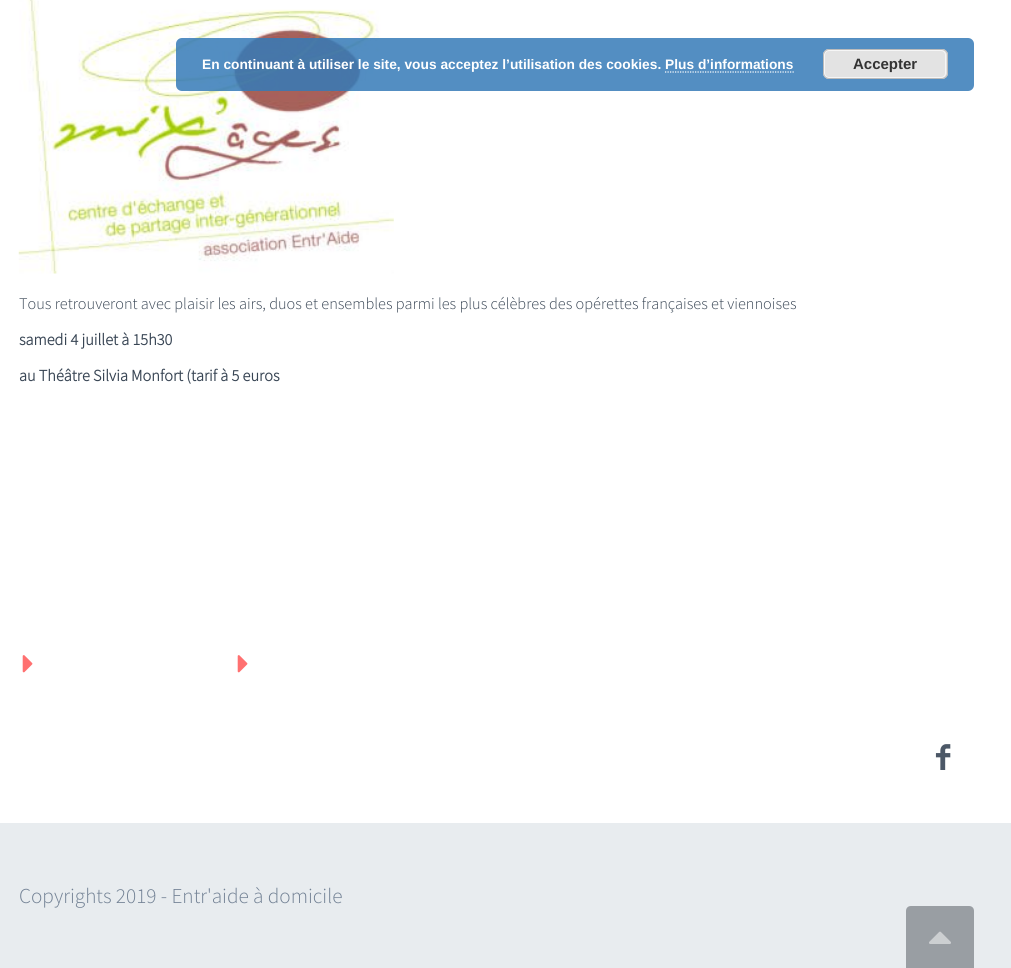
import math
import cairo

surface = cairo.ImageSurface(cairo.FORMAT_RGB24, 1011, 968)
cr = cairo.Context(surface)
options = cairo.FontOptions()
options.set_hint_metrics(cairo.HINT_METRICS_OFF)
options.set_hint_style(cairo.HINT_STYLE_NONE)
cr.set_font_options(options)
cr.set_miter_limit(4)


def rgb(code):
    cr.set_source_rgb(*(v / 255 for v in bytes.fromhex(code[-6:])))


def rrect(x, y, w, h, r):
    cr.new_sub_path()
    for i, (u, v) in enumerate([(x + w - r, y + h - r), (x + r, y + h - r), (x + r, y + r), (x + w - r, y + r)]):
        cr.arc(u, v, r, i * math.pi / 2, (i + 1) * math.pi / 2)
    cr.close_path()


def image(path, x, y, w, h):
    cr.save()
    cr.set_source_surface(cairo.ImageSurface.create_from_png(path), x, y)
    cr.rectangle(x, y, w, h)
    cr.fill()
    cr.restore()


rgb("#e8ecef")
cr.paint()
rgb("#ffffff")
cr.rectangle(0, 0, 1011, 823)
cr.fill()
image("img/3.png", 18, 0, 376, 274)
cr.set_source_rgba(0.208, 0.478, 0.718, 0.85)
rrect(176, 38, 798, 53, 6)
cr.fill()
rgb("#e3e3e3")
rrect(823, 49, 125, 30, 6)
cr.fill()
rrect(824.5, 50.5, 121, 27, 4.5)
rgb("#f6f6f6")
cr.set_line_width(1)
cr.stroke()
rrect(823.5, 49.5, 124, 29, 5.5)
rgb("#bbbbbb")
cr.stroke()
cr.new_path()
cr.move_to(665, 72)
cr.line_to(794, 72)
rgb("#ffffff")
cr.set_line_width(1.2)
cr.set_dash([1.25, 1.25])
cr.stroke()
image("img/1.png", 22, 655, 11, 18)
image("img/1.png", 237, 655, 11, 18)
image("img/2.png", 935, 744, 16, 26)
rgb("#999ea3")
cr.new_path()
cr.move_to(911, 906)
cr.line_to(969, 906)
cr.curve_to(972, 906, 974, 908, 974, 911)
cr.line_to(974, 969)
cr.line_to(906, 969)
cr.line_to(906, 911)
cr.curve_to(906, 908, 908, 906, 911, 906)
cr.close_path()
cr.fill()
image("img/4.png", 929, 931, 22, 13)
cr.select_font_face("Liberation Sans", cairo.FONT_SLANT_NORMAL, cairo.FONT_WEIGHT_BOLD)
cr.set_font_size(13.75)
rgb("#ffffff")
cr.move_to(202, 69)
cr.show_text("En continuant à utiliser le site, vous acceptez l’utilisation des cookies. Plus d’informations")
cr.set_font_size(15)
rgb("#333333")
cr.move_to(853, 69)
cr.show_text("Accepter")
cr.select_font_face("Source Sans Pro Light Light")
cr.set_font_size(16.25)
rgb("#384554")
cr.move_to(19, 309)
cr.show_text("Tous retrouveront avec plaisir les airs, duos et ensembles parmi les plus célèbres des opérettes françaises et viennoises")
cr.select_font_face("Source Sans Pro Light", cairo.FONT_SLANT_NORMAL, cairo.FONT_WEIGHT_BOLD)
cr.move_to(19, 345)
cr.show_text("samedi 4 juillet à 15h30")
cr.move_to(19, 381)
cr.show_text("au Théâtre Silvia Monfort (tarif à 5 euros")
cr.select_font_face("Source Sans Pro Light Light")
cr.set_font_size(21.25)
rgb("#728194")
cr.move_to(19, 903)
cr.show_text("Copyrights 2019 - Entr'aide à domicile")
surface.write_to_png("page.png")
